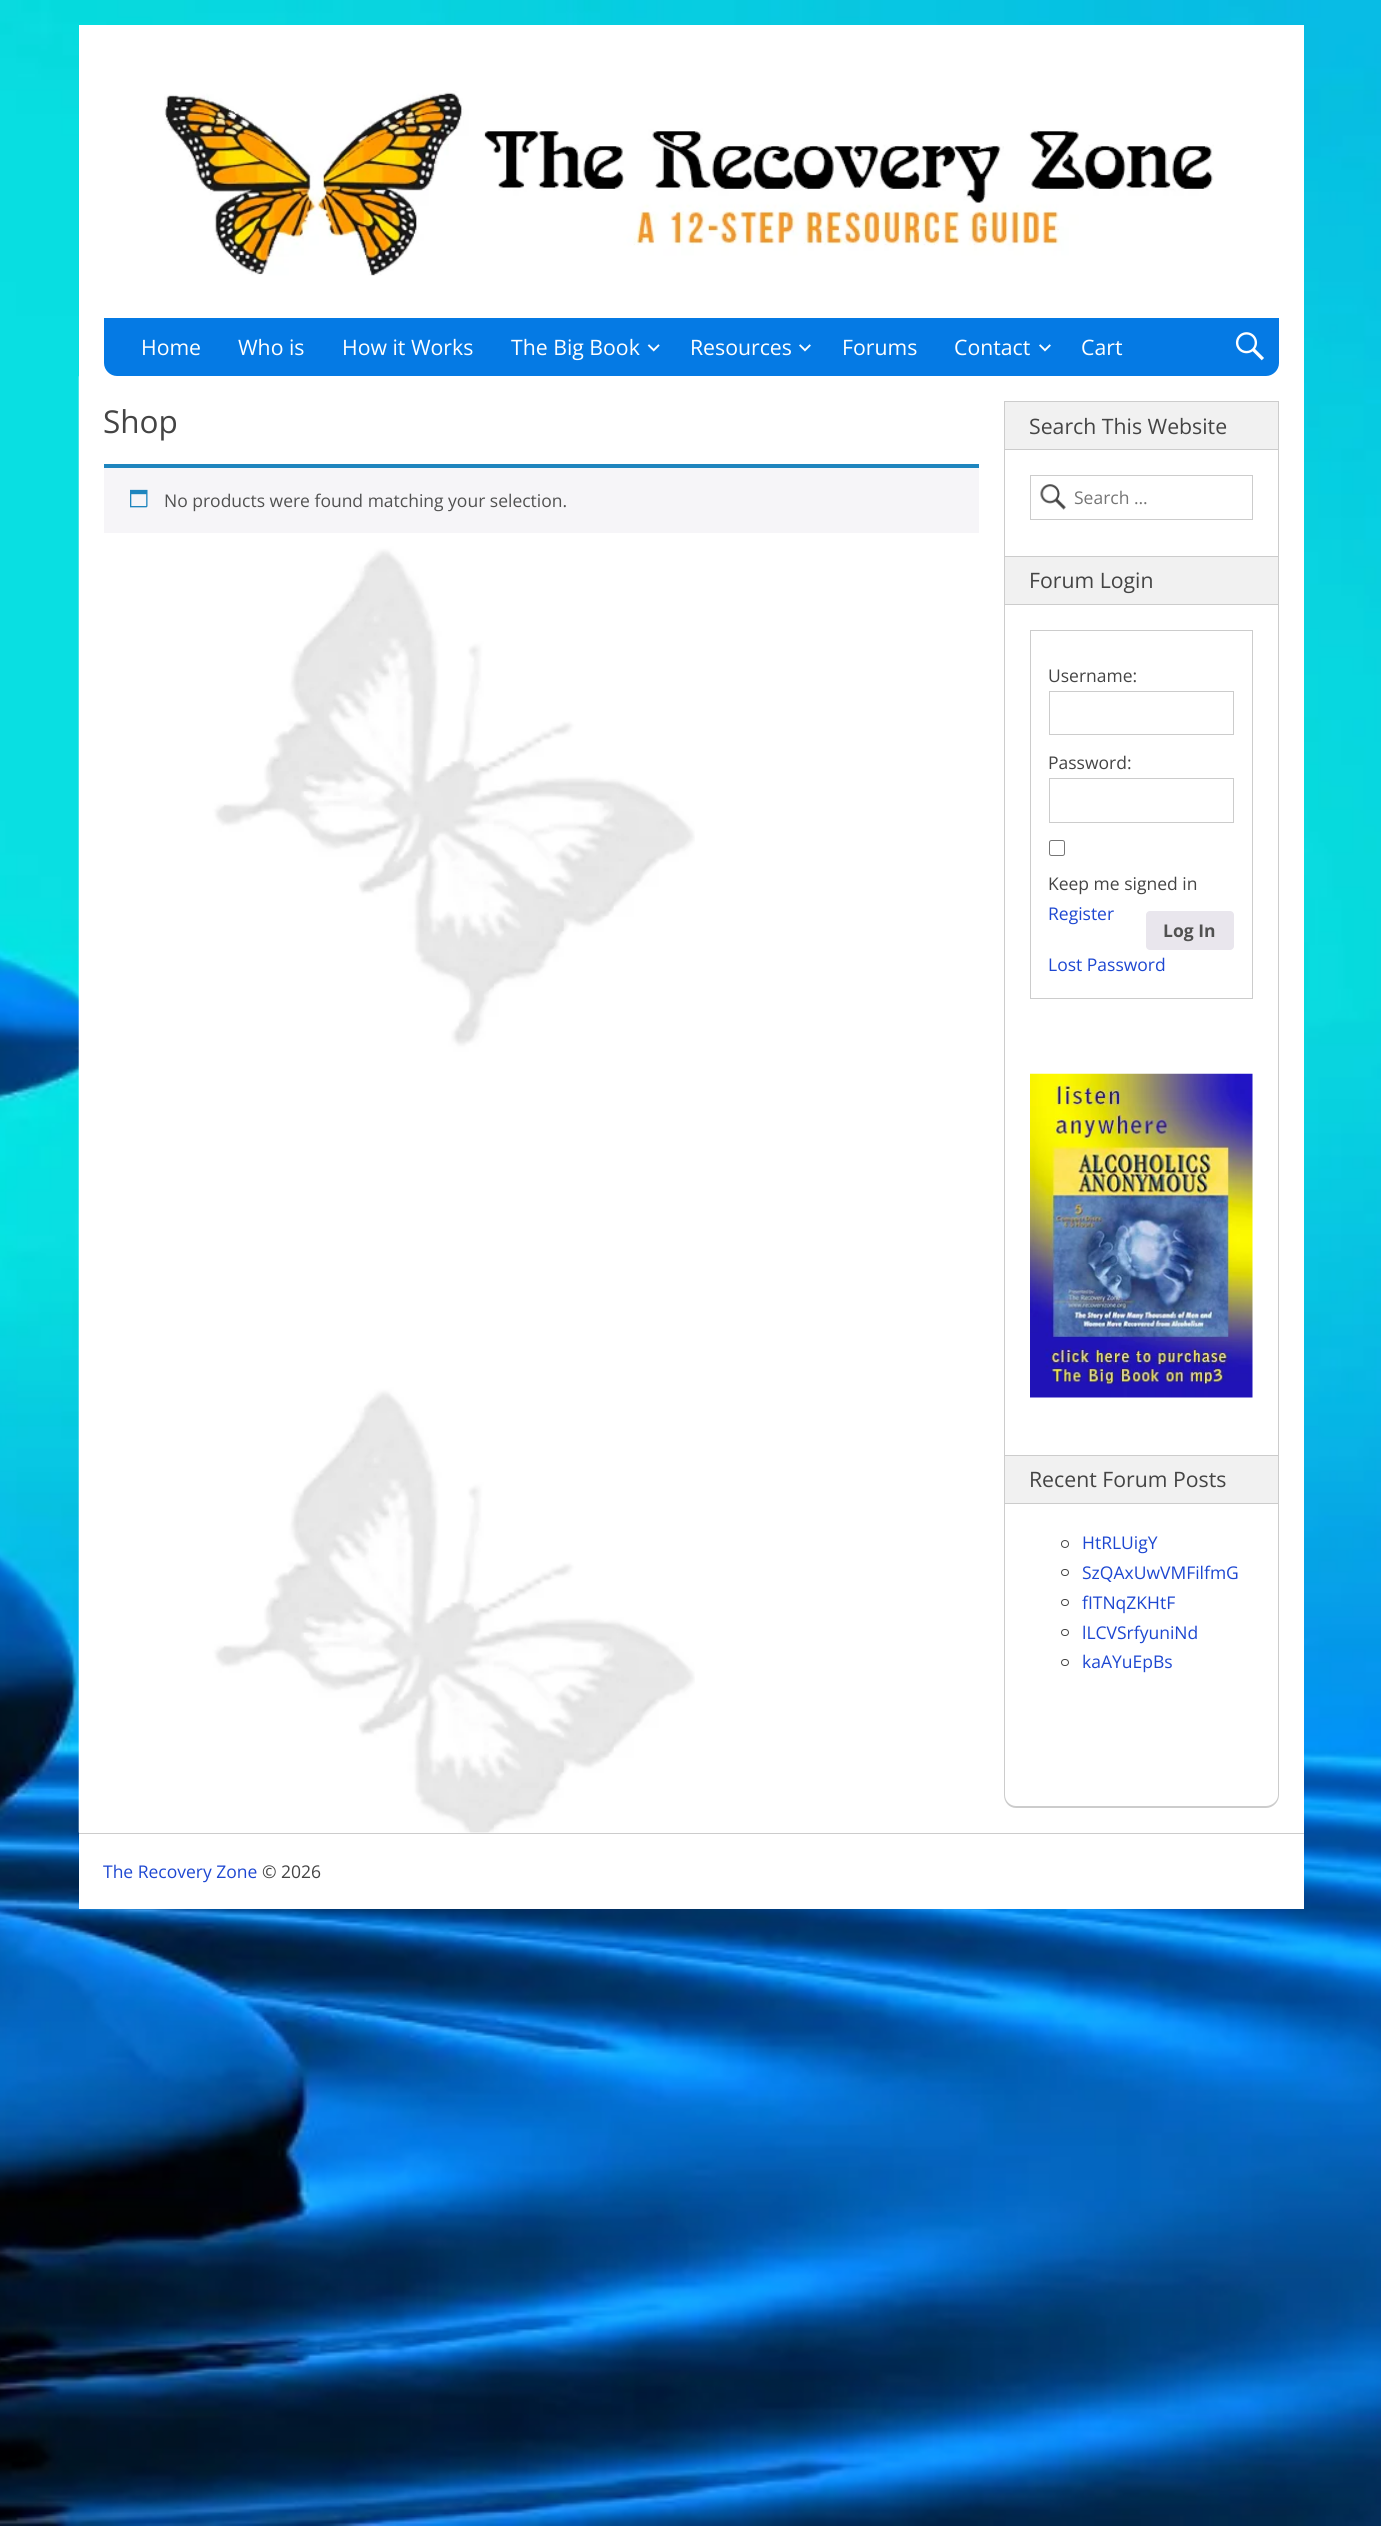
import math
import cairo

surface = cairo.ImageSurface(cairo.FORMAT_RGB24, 1381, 2526)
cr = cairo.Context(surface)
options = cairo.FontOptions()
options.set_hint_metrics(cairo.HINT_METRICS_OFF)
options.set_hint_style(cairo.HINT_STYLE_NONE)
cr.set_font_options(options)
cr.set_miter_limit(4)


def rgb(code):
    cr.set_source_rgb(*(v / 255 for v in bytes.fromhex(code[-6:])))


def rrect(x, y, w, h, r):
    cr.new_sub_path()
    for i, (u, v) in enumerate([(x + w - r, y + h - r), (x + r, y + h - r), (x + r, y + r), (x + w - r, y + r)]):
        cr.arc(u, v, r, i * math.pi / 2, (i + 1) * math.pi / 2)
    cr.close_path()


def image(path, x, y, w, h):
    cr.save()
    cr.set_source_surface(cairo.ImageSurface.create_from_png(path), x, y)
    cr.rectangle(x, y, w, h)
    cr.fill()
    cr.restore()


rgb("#ffffff")
cr.paint()
image("img/1.png", 0, 0, 1381, 2526)
rgb("#ffffff")
cr.rectangle(79, 25, 1225, 1884)
cr.fill()
image("img/2.png", 164, 90, 1050, 186)
rgb("#057ae4")
cr.new_path()
cr.move_to(104, 318)
cr.line_to(1279, 318)
cr.line_to(1279, 363)
cr.curve_to(1279, 370, 1273, 376, 1266, 376)
cr.line_to(117, 376)
cr.curve_to(110, 376, 104, 370, 104, 363)
cr.close_path()
cr.fill()
image("img/3.png", 647, 344, 13, 8)
image("img/4.png", 799, 344, 12, 8)
image("img/4.png", 1039, 344, 12, 8)
image("img/5.png", 1235, 332, 29, 29)
image("img/6.png", 78, 376, 617, 1457)
rgb("#f6f5f8")
cr.rectangle(104, 468, 875, 65)
cr.fill()
rgb("#1e85be")
cr.rectangle(104, 464, 875, 4)
cr.fill()
image("img/7.png", 130, 489, 18, 19)
rgb("#cccccc")
cr.rectangle(1278, 450, 1, 108)
cr.fill()
cr.rectangle(1004, 450, 1, 108)
cr.fill()
rgb("#f1f1f1")
cr.rectangle(1004.5, 401.5, 274, 48)
cr.fill_preserve()
rgb("#cccccc")
cr.set_line_width(1)
cr.stroke()
image("img/8.png", 1040, 484, 26, 26)
cr.rectangle(1030.5, 475.5, 222, 44)
cr.stroke()
cr.rectangle(1278, 605, 1, 851)
cr.fill()
cr.rectangle(1004, 605, 1, 851)
cr.fill()
rgb("#f1f1f1")
cr.rectangle(1004.5, 556.5, 274, 48)
cr.fill_preserve()
rgb("#cccccc")
cr.stroke()
cr.rectangle(1030.5, 630.5, 222, 368)
cr.stroke()
cr.rectangle(1049.5, 691.5, 184, 43)
cr.stroke()
cr.rectangle(1049.5, 778.5, 184, 44)
cr.stroke()
rrect(1049.5, 840.5, 15, 15, 2)
rgb("#767676")
cr.stroke()
rgb("#e9e6ed")
rrect(1146, 911, 88, 39, 4)
cr.fill()
image("img/9.png", 1030, 1073, 223, 325)
rgb("#cccccc")
cr.rectangle(1278, 1504, 1, 224)
cr.fill()
cr.rectangle(1004, 1504, 1, 224)
cr.fill()
rgb("#f1f1f1")
cr.rectangle(1004.5, 1455.5, 274, 48)
cr.fill_preserve()
rgb("#cccccc")
cr.stroke()
cr.arc(1065, 1544, 3.5, 0, 2 * math.pi)
rgb("#444444")
cr.stroke()
rrect(1061.5, 1569.5, 7, 6, 3)
cr.stroke()
rrect(1061.5, 1599.5, 7, 6, 3)
cr.stroke()
rrect(1061.5, 1629.5, 7, 6, 3)
cr.stroke()
rrect(1061.5, 1659.5, 7, 6, 3)
cr.stroke()
rgb("#cccccc")
cr.set_fill_rule(cairo.FILL_RULE_EVEN_ODD)
cr.new_path()
cr.move_to(1004, 1728)
cr.line_to(1279, 1728)
cr.line_to(1279, 1795)
cr.curve_to(1279, 1802, 1273, 1808, 1266, 1808)
cr.line_to(1016, 1808)
cr.curve_to(1009, 1808, 1004, 1802, 1004, 1795)
cr.close_path()
cr.move_to(1005, 1728)
cr.line_to(1278, 1728)
cr.line_to(1278, 1795)
cr.curve_to(1278, 1801, 1272, 1806, 1266, 1806)
cr.line_to(1016, 1806)
cr.curve_to(1010, 1806, 1005, 1801, 1005, 1795)
cr.close_path()
cr.fill()
cr.rectangle(79, 1833, 1225, 1)
cr.fill()
cr.select_font_face("Open Sans")
cr.set_font_size(21.25)
rgb("#ffffff")
for x, y, s in [
    (141, 355, "Home"),
    (238, 355, "Who is"),
    (342, 355, "How it Works"),
    (511, 355, "The Big Book"),
    (690, 355, "Resources"),
    (842, 355, "Forums"),
    (954, 355, "Contact"),
    (1081, 355, "Cart"),
]:
    cr.move_to(x, y)
    cr.show_text(s)
cr.set_font_size(31.5)
rgb("#444444")
cr.move_to(103, 433)
cr.show_text("Shop")
cr.set_font_size(17.5)
rgb("#515151")
cr.move_to(164, 507)
cr.show_text("No products were found matching your selection.")
cr.set_font_size(21.25)
rgb("#444444")
cr.move_to(1029, 434)
cr.show_text("Search This Website")
cr.set_font_size(17.5)
rgb("#757575")
cr.move_to(1074, 504)
cr.show_text("Search …")
cr.set_font_size(21.25)
rgb("#444444")
cr.move_to(1029, 588)
cr.show_text("Forum Login")
cr.set_font_size(17.5)
for x, y, s in [
    (1048, 682, "Username:"),
    (1048, 769, "Password:"),
    (1048, 890, "Keep me signed in"),
]:
    cr.move_to(x, y)
    cr.show_text(s)
rgb("#1d47d1")
cr.move_to(1048, 920)
cr.show_text("Register")
cr.move_to(1048, 971)
cr.show_text("Lost Password")
cr.select_font_face("Open Sans", cairo.FONT_SLANT_NORMAL, cairo.FONT_WEIGHT_BOLD)
rgb("#515151")
cr.move_to(1163, 937)
cr.show_text("Log In")
cr.select_font_face("Open Sans")
cr.set_font_size(21.25)
rgb("#444444")
cr.move_to(1029, 1487)
cr.show_text("Recent Forum Posts")
cr.set_font_size(17.5)
rgb("#1d47d1")
for x, y, s in [
    (1082, 1549, "HtRLUigY"),
    (1082, 1579, "SzQAxUwVMFilfmG"),
    (1082, 1609, "fITNqZKHtF"),
    (1082, 1639, "lLCVSrfyuniNd"),
    (1082, 1668, "kaAYuEpBs"),
    (103, 1878, "The Recovery Zone"),
]:
    cr.move_to(x, y)
    cr.show_text(s)
rgb("#444444")
cr.move_to(262, 1878)
cr.show_text("© 2026")
surface.write_to_png("page.png")
